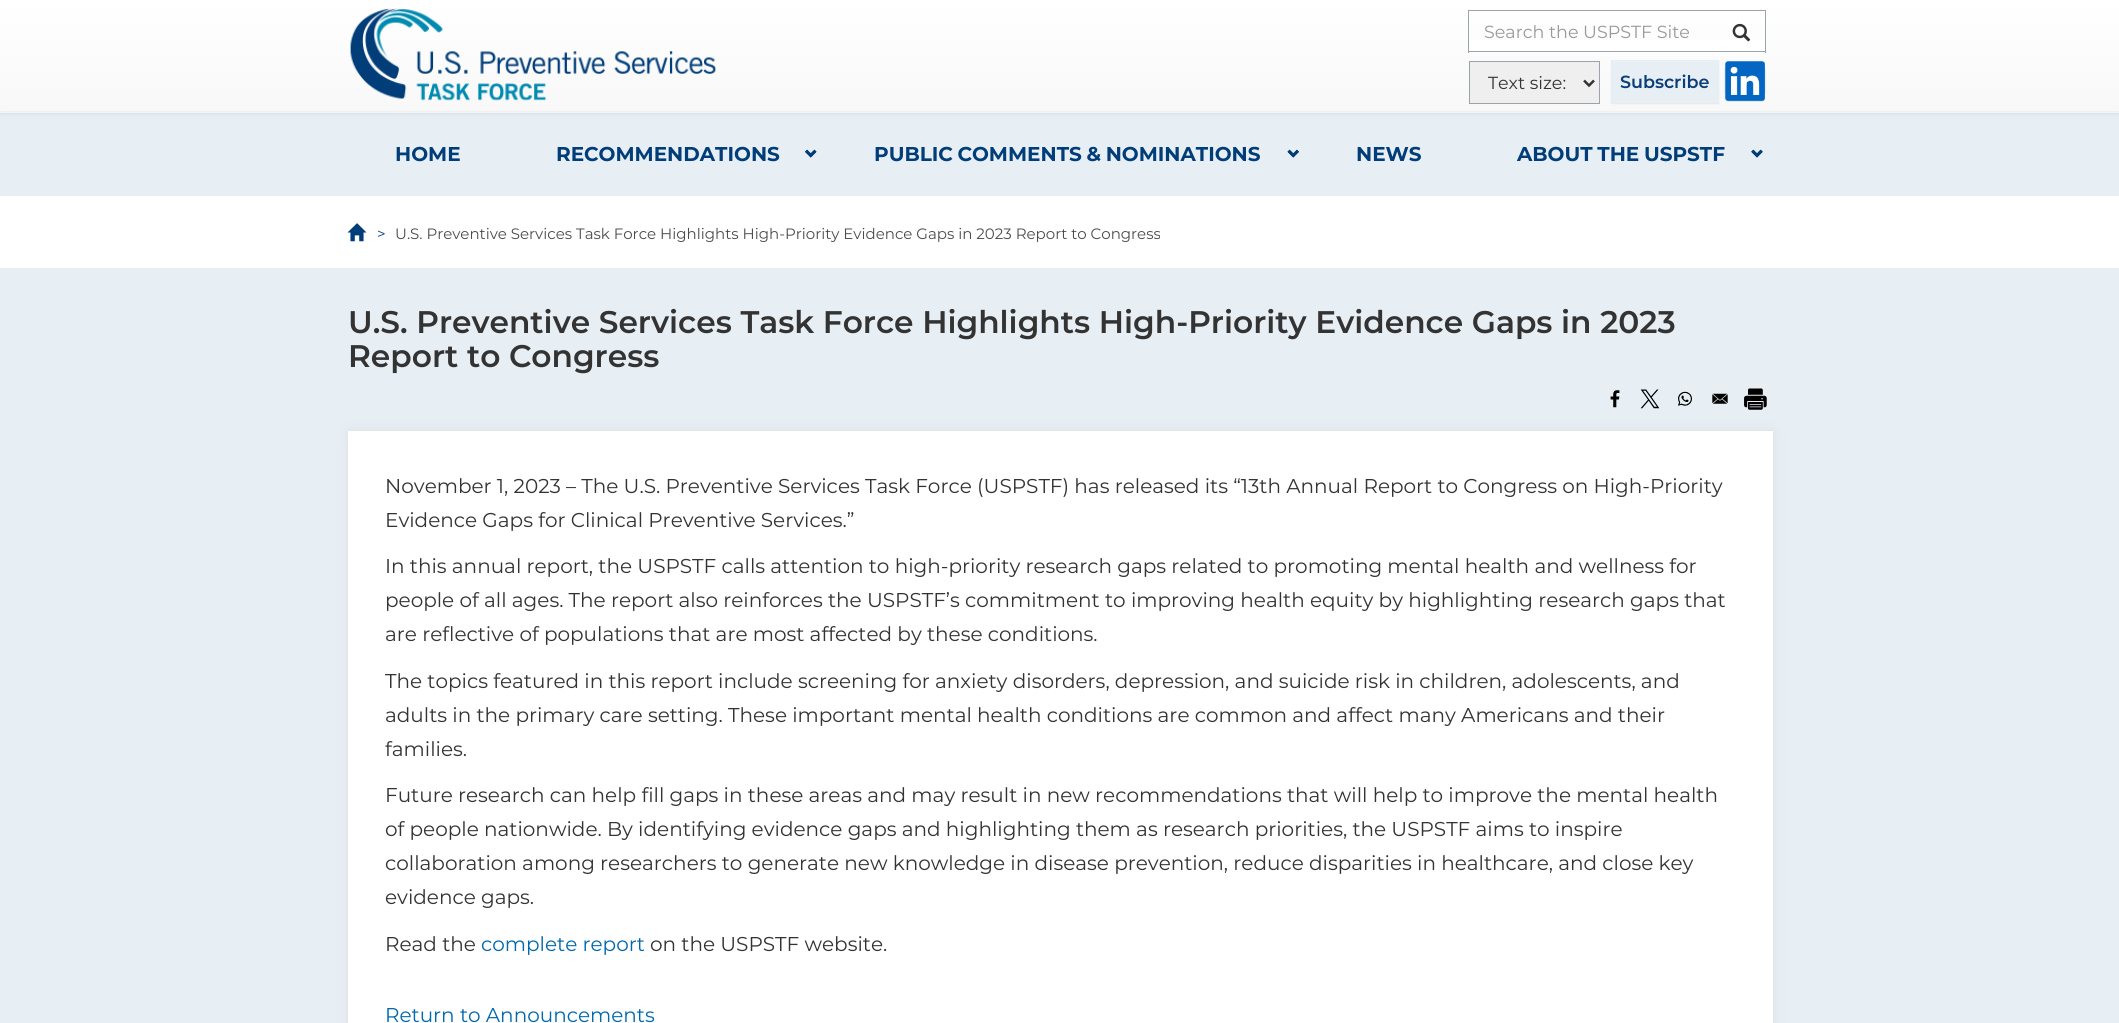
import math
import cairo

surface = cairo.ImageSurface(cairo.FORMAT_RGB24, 2119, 1023)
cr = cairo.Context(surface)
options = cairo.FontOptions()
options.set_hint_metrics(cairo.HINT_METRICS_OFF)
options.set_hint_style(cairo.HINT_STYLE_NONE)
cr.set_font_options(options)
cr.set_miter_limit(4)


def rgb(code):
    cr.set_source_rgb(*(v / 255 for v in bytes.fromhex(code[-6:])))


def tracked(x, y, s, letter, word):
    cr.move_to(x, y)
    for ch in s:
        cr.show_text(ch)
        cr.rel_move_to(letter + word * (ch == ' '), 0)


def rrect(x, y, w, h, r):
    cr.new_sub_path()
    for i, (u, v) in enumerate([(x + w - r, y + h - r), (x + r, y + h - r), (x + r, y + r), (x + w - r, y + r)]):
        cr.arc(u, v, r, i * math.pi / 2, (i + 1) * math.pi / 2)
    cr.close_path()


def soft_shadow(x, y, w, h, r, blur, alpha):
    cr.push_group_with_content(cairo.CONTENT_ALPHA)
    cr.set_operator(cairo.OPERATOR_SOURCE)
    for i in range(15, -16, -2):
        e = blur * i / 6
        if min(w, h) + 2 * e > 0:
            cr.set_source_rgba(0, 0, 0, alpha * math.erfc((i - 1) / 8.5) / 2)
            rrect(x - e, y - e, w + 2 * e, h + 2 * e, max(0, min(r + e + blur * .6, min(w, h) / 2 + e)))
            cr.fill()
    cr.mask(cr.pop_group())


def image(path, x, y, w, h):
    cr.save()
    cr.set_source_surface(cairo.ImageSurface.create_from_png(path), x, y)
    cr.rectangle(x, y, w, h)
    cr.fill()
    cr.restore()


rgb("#ffffff")
cr.paint()
rgb("#e7eff5")
cr.rectangle(0, 113, 2119, 83)
cr.fill()
rgb("#000000")
soft_shadow(0, 1, 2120, 113, 0, 3, 0.07)
gradient = cairo.LinearGradient(1060, 0, 1060, 111)
gradient.add_color_stop_rgba(0, 1, 1, 1, 1)
gradient.add_color_stop_rgba(1, 0.973, 0.973, 0.973, 1)
cr.set_source(gradient)
cr.rectangle(0, 0, 2119, 111)
cr.fill()
image("img/1.png", 350, 8, 366, 93)
for x, y, w, h, color in [
    (1469, 40, 296, 13, "#ffffff"),
    (1468, 10, 298, 1, "#9ba4ab"),
    (1468, 51, 250, 1, "#9ba4ab"),
    (1468, 10, 1, 43, "#9ba4ab"),
    (1765, 10, 1, 43, "#9ba4ab"),
    (1718, 51, 48, 1, "#9ba4ab"),
]:
    rgb(color)
    cr.rectangle(x, y, w, h)
    cr.fill()
image("img/2.png", 1732, 23, 19, 19)
rgb("#efefef")
cr.rectangle(1469.5, 61.5, 130, 42)
cr.fill_preserve()
rgb("#9ba4ab")
cr.set_line_width(1)
cr.stroke()
cr.new_path()
cr.move_to(1584, 80.5)
cr.line_to(1589, 85.5)
cr.line_to(1594, 80.5)
rgb("#333333")
cr.set_line_width(2.5)
cr.stroke()
rgb("#000000")
soft_shadow(1611, 61, 108, 43, 0, 0.5, 0.07)
for x, y, w, h, color in [
    (1611, 60, 108, 43, "#e7eff5"),
    (1613, 61, 105, 1, "#ebf1f7"),
    (1724, 68, 42, 26, "#e7eff5"),
]:
    rgb(color)
    cr.rectangle(x, y, w, h)
    cr.fill()
image("img/3.png", 1725, 61, 40, 41)
image("img/4.png", 805, 149, 12, 9)
image("img/5.png", 805, 149, 12, 9)
image("img/6.png", 1287, 149, 12, 9)
image("img/7.png", 1287, 149, 12, 9)
image("img/8.png", 1751, 149, 12, 9)
image("img/9.png", 1751, 149, 12, 9)
image("img/10.png", 347, 223, 20, 19)
cr.rectangle(0, 268, 2119, 755)
cr.fill()
rgb("#eeeeee")
cr.rectangle(348, 385, 1425, 1)
cr.fill()
image("img/11.png", 1610, 390, 10, 18)
image("img/12.png", 1640, 389, 20, 20)
image("img/13.png", 1678, 391, 14, 15)
image("img/14.png", 1712, 393, 16, 11)
image("img/15.png", 1744, 388, 23, 22)
rgb("#dedede")
soft_shadow(348, 431, 1425, 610, 0, 6, 1)
rgb("#ffffff")
cr.rectangle(348, 431, 1425, 592)
cr.fill()
cr.select_font_face("Montserrat")
cr.set_font_size(17.5)
rgb("#999999")
cr.move_to(1484, 38)
cr.show_text("Search the USPSTF Site")
rgb("#333333")
cr.move_to(1488, 89)
cr.show_text("Text size:")
cr.select_font_face("Montserrat SemiBold")
rgb("#0a3d79")
cr.move_to(1620, 88)
cr.show_text("Subscribe")
cr.select_font_face("Montserrat", cairo.FONT_SLANT_NORMAL, cairo.FONT_WEIGHT_BOLD)
cr.set_font_size(20)
rgb("#003d79")
cr.move_to(395, 161)
cr.show_text("HOME")
cr.move_to(556, 161)
cr.show_text("RECOMMENDATIONS")
tracked(874, 161, "PUBLIC COMMENTS & NOMINATIONS", 0, -1)
cr.move_to(1356, 161)
cr.show_text("NEWS")
tracked(1517, 161, "ABOUT THE USPSTF", 0, -1)
cr.select_font_face("Montserrat")
cr.set_font_size(15)
cr.move_to(377, 239)
cr.show_text(">")
rgb("#4c4c4c")
cr.move_to(395, 239)
cr.show_text("U.S. Preventive Services Task Force Highlights High-Priority Evidence Gaps in 2023 Report to Congress")
cr.select_font_face("Montserrat SemiBold")
cr.set_font_size(31.25)
rgb("#333333")
cr.move_to(348, 333)
cr.show_text("U.S. Preventive Services Task Force Highlights High-Priority Evidence Gaps in 2023")
cr.move_to(348, 367)
cr.show_text("Report to Congress")
cr.select_font_face("Montserrat")
cr.set_font_size(20)
for x, y, s in [
    (385, 493, "November 1, 2023 – The U.S. Preventive Services Task Force (USPSTF) has released its “13th Annual Report to Congress on High-Priority"),
    (385, 527, "Evidence Gaps for Clinical Preventive Services.”"),
    (385, 573, "In this annual report, the USPSTF calls attention to high-priority research gaps related to promoting mental health and wellness for"),
    (385, 607, "people of all ages. The report also reinforces the USPSTF’s commitment to improving health equity by highlighting research gaps that"),
    (385, 641, "are reflective of populations that are most affected by these conditions."),
    (385, 688, "The topics featured in this report include screening for anxiety disorders, depression, and suicide risk in children, adolescents, and"),
    (385, 722, "adults in the primary care setting. These important mental health conditions are common and affect many Americans and their"),
    (385, 756, "families."),
    (385, 802, "Future research can help fill gaps in these areas and may result in new recommendations that will help to improve the mental health"),
    (385, 836, "of people nationwide. By identifying evidence gaps and highlighting them as research priorities, the USPSTF aims to inspire"),
    (385, 870, "collaboration among researchers to generate new knowledge in disease prevention, reduce disparities in healthcare, and close key"),
    (385, 904, "evidence gaps."),
    (385, 951, "Read the"),
]:
    cr.move_to(x, y)
    cr.show_text(s)
rgb("#0068af")
cr.move_to(481, 951)
cr.show_text("complete report")
rgb("#333333")
cr.move_to(650, 951)
cr.show_text("on the USPSTF website.")
rgb("#0068af")
cr.move_to(385, 1022)
cr.show_text("Return to Announcements")
surface.write_to_png("page.png")
